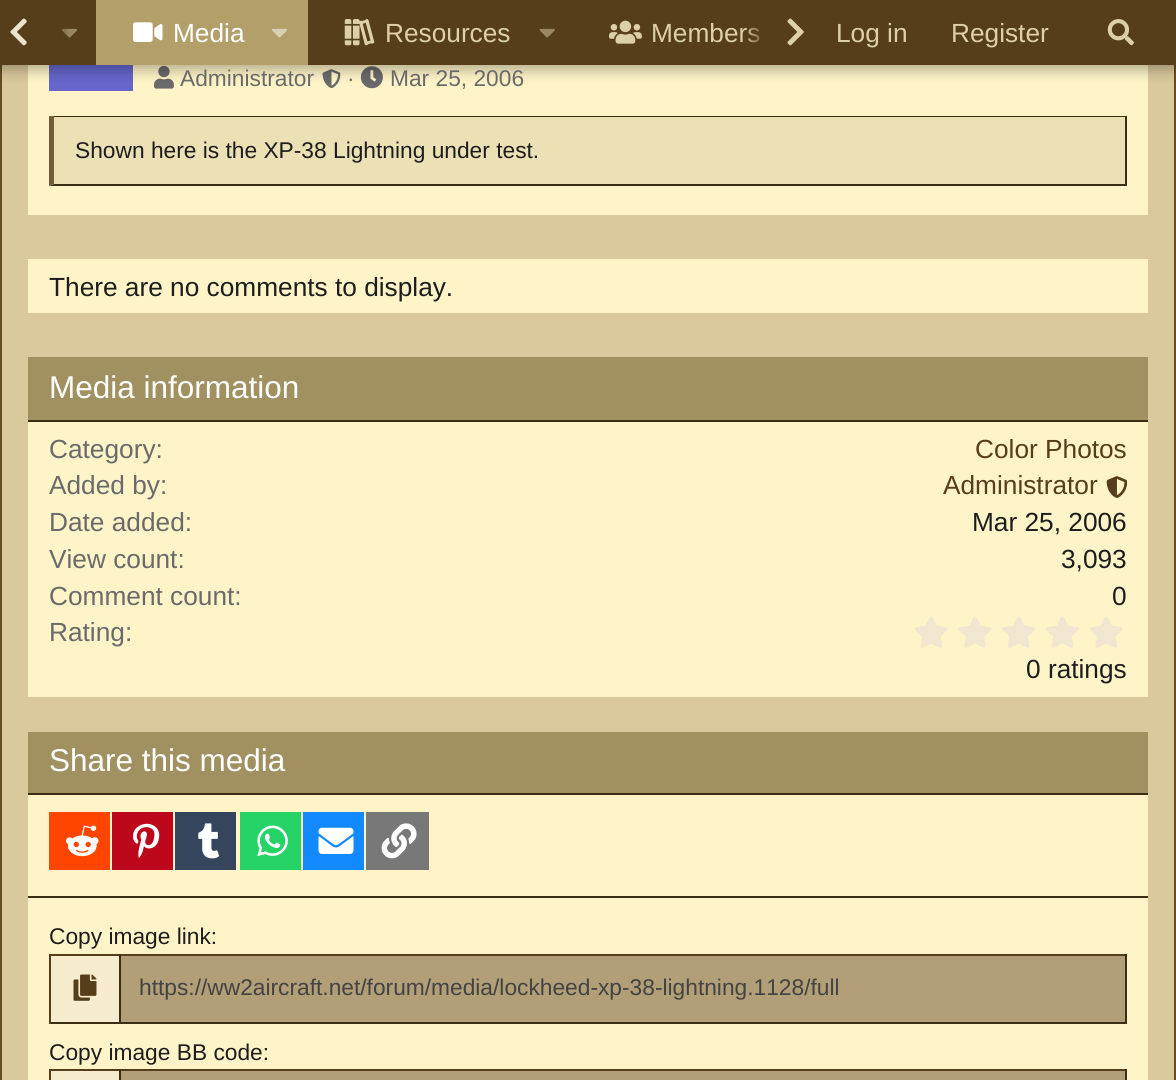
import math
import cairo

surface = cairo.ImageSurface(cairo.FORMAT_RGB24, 1176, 1080)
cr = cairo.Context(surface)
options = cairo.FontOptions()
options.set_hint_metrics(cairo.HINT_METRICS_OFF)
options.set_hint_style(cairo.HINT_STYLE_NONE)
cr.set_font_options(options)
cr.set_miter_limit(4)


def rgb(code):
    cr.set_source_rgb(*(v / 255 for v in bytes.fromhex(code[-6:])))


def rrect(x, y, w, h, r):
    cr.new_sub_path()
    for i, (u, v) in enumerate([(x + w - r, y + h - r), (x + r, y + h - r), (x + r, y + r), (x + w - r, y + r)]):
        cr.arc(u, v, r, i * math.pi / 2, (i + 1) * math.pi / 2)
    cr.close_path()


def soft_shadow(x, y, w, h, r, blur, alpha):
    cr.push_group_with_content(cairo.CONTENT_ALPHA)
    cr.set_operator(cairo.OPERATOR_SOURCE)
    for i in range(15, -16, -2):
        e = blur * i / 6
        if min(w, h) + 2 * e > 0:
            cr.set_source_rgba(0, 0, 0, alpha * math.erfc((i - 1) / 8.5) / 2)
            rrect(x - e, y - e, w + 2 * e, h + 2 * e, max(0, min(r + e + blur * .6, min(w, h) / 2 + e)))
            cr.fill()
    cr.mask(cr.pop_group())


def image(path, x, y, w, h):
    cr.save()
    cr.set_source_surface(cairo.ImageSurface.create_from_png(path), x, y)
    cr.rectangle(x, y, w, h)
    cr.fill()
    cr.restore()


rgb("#dac99c")
cr.paint()
for x, y, w, h, color in [
    (1174, 65, 2, 1015, "#694c1f"),
    (0, 65, 2, 1015, "#694c1f"),
    (28, 65, 1120, 150, "#fff4c8"),
    (49, 65, 84, 26, "#6666cc"),
]:
    rgb(color)
    cr.rectangle(x, y, w, h)
    cr.fill()
image("img/10.png", 154, 65, 20, 24)
image("img/11.png", 322, 69, 19, 20)
image("img/12.png", 360, 66, 23, 23)
rgb("#000000")
soft_shadow(-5, -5, 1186, 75, 0, 7, 0.3)
rgb("#553e19")
cr.rectangle(46, 0, 1130, 65)
cr.fill()
image("img/2.png", 61, 28, 16, 10)
gradient = cairo.LinearGradient(0, 32, 70, 32)
gradient.add_color_stop_rgba(0.66, 0.333, 0.243, 0.098, 1)
gradient.add_color_stop_rgba(1, 0.333, 0.243, 0.098, 0)
cr.set_source(gradient)
cr.rectangle(0, 0, 69, 65)
cr.fill()
image("img/1.png", 10, 18, 17, 28)
rgb("#b39f6a")
cr.rectangle(96, 0, 212, 65)
cr.fill()
image("img/3.png", 133, 22, 30, 20)
image("img/4.png", 271, 28, 16, 10)
image("img/5.png", 344, 19, 31, 27)
image("img/6.png", 539, 28, 16, 10)
image("img/7.png", 609, 20, 33, 24)
image("img/8.png", 787, 18, 17, 28)
image("img/9.png", 1107, 19, 27, 27)
rgb("#ece0b5")
cr.rectangle(54, 117, 1071, 67)
cr.fill()
rgb("#3d2d12")
cr.new_path()
cr.move_to(49, 116)
cr.line_to(1127, 116)
cr.line_to(1125, 117)
cr.line_to(54, 117)
cr.close_path()
cr.fill()
cr.rectangle(1125, 116, 2, 70)
cr.fill()
cr.new_path()
cr.move_to(1127, 186)
cr.line_to(49, 186)
cr.line_to(54, 184)
cr.line_to(1125, 184)
cr.close_path()
cr.fill()
rgb("#735c37")
cr.new_path()
cr.move_to(49, 186)
cr.line_to(49, 116)
cr.line_to(54, 117)
cr.line_to(54, 184)
cr.close_path()
cr.fill()
for x, y, w, h, color in [
    (28, 259, 1120, 54, "#fff4c8"),
    (28, 422, 1120, 275, "#fff4c8"),
    (28, 357, 1120, 63, "#a19161"),
    (28, 420, 1120, 2, "#3d2d12"),
]:
    rgb(color)
    cr.rectangle(x, y, w, h)
    cr.fill()
image("img/13.png", 1106, 476, 21, 22)
image("img/14.png", 915, 616, 33, 32)
image("img/15.png", 958, 616, 34, 32)
image("img/16.png", 1002, 616, 33, 32)
image("img/17.png", 1046, 616, 33, 32)
image("img/14.png", 1090, 616, 33, 32)
for x, y, w, h, color in [
    (28, 795, 1120, 285, "#fff4c8"),
    (28, 732, 1120, 61, "#a19161"),
    (28, 793, 1120, 2, "#3d2d12"),
    (49, 812, 61, 58, "#ff4500"),
]:
    rgb(color)
    cr.rectangle(x, y, w, h)
    cr.fill()
image("img/18.png", 66, 825, 33, 32)
rgb("#bd081c")
cr.rectangle(112, 812, 61, 58)
cr.fill()
image("img/19.png", 133, 823, 27, 35)
rgb("#35465c")
cr.rectangle(175, 812, 61, 58)
cr.fill()
image("img/20.png", 198, 823, 21, 36)
rgb("#25d366")
cr.rectangle(240, 812, 61, 58)
cr.fill()
image("img/21.png", 257, 825, 31, 32)
rgb("#1289ff")
cr.rectangle(303, 812, 61, 58)
cr.fill()
image("img/22.png", 318, 827, 36, 27)
rgb("#787878")
cr.rectangle(366, 812, 63, 58)
cr.fill()
image("img/23.png", 381, 823, 36, 36)
for x, y, w, h, color in [
    (28, 896, 1120, 2, "#3d2d12"),
    (51, 956, 68, 66, "#f7eccd"),
    (49, 954, 1078, 2, "#553e19"),
    (49, 1022, 70, 2, "#3d2d12"),
    (49, 954, 2, 70, "#553e19"),
]:
    rgb(color)
    cr.rectangle(x, y, w, h)
    cr.fill()
image("img/24.png", 73, 974, 24, 27)
for x, y, w, h, color in [
    (121, 956, 1004, 66, "#b29e77"),
    (1125, 954, 2, 70, "#3d2d12"),
    (119, 1022, 1008, 2, "#3d2d12"),
    (119, 954, 2, 70, "#3d2d12"),
    (51, 1071, 68, 9, "#f7eccd"),
    (49, 1069, 1078, 2, "#553e19"),
    (49, 1069, 2, 11, "#553e19"),
    (121, 1071, 1004, 9, "#b29e77"),
    (1125, 1069, 2, 11, "#3d2d12"),
    (119, 1069, 2, 11, "#3d2d12"),
]:
    rgb(color)
    cr.rectangle(x, y, w, h)
    cr.fill()
cr.select_font_face("Liberation Sans")
cr.set_font_size(26.25)
rgb("#ffffff")
cr.move_to(173, 42)
cr.show_text("Media")
rgb("#ded0a6")
cr.move_to(385, 42)
cr.show_text("Resources")
cr.move_to(651, 42)
cr.show_text("Members")
gradient = cairo.LinearGradient(744, 32, 814, 32)
gradient.add_color_stop_rgba(0, 0.333, 0.243, 0.098, 0)
gradient.add_color_stop_rgba(0.33, 0.333, 0.243, 0.098, 1)
cr.set_source(gradient)
cr.rectangle(744, 27, 16, 16)
cr.fill()
rgb("#ded0a6")
cr.move_to(836, 42)
cr.show_text("Log in")
cr.move_to(951, 42)
cr.show_text("Register")
cr.set_font_size(22.75)
rgb("#6a6a6a")
for x, y, s in [
    (180, 86, "Administrator"),
    (347, 86, "·"),
    (390, 86, "Mar 25, 2006"),
]:
    cr.move_to(x, y)
    cr.show_text(s)
rgb("#1d1d1d")
cr.move_to(75, 158)
cr.show_text("Shown here is the XP-38 Lightning under test.")
cr.set_font_size(26.25)
cr.move_to(49, 296)
cr.show_text("There are no comments to display.")
cr.set_font_size(31.5)
rgb("#ffffff")
cr.move_to(49, 398)
cr.show_text("Media information")
cr.set_font_size(26.25)
rgb("#6a6a6a")
cr.move_to(49, 458)
cr.show_text("Category:")
rgb("#553e19")
cr.move_to(975, 458)
cr.show_text("Color Photos")
rgb("#6a6a6a")
cr.move_to(49, 494)
cr.show_text("Added by:")
rgb("#553e19")
cr.move_to(943, 494)
cr.show_text("Administrator")
rgb("#6a6a6a")
cr.move_to(49, 531)
cr.show_text("Date added:")
rgb("#1d1d1d")
cr.move_to(972, 531)
cr.show_text("Mar 25, 2006")
rgb("#6a6a6a")
cr.move_to(49, 568)
cr.show_text("View count:")
rgb("#1d1d1d")
cr.move_to(1061, 568)
cr.show_text("3,093")
rgb("#6a6a6a")
cr.move_to(49, 605)
cr.show_text("Comment count:")
rgb("#1d1d1d")
cr.move_to(1112, 605)
cr.show_text("0")
rgb("#6a6a6a")
cr.move_to(49, 641)
cr.show_text("Rating:")
rgb("#1d1d1d")
cr.move_to(1026, 678)
cr.show_text("0 ratings")
cr.set_font_size(31.5)
rgb("#ffffff")
cr.move_to(49, 771)
cr.show_text("Share this media")
cr.set_font_size(22.75)
rgb("#1d1d1d")
cr.move_to(49, 944)
cr.show_text("Copy image link:")
rgb("#434343")
cr.move_to(139, 995)
cr.show_text("https://ww2aircraft.net/forum/media/lockheed-xp-38-lightning.1128/full")
rgb("#1d1d1d")
cr.move_to(49, 1060)
cr.show_text("Copy image BB code:")
surface.write_to_png("page.png")
